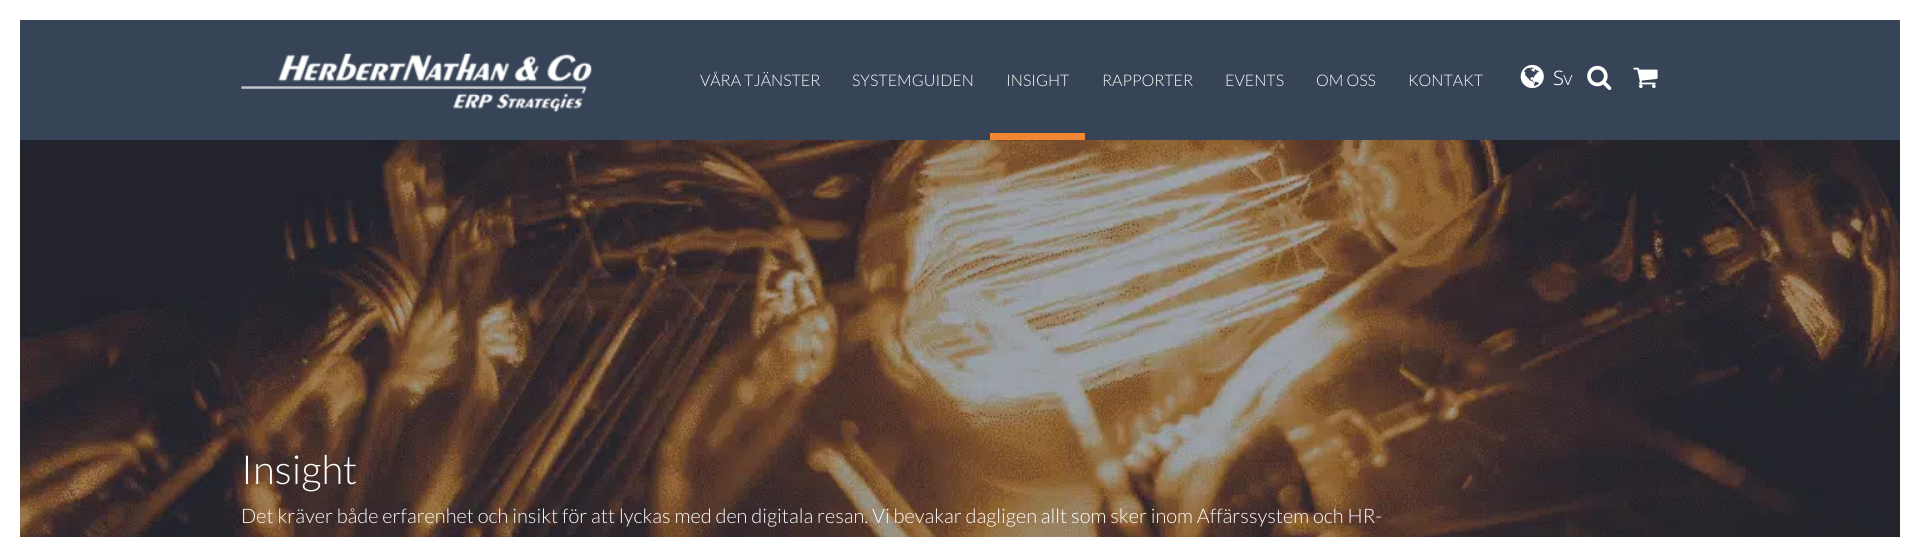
import math
import cairo

surface = cairo.ImageSurface(cairo.FORMAT_RGB24, 1919, 537)
cr = cairo.Context(surface)
options = cairo.FontOptions()
options.set_hint_metrics(cairo.HINT_METRICS_OFF)
options.set_hint_style(cairo.HINT_STYLE_NONE)
cr.set_font_options(options)
cr.set_miter_limit(4)


def rgb(code):
    cr.set_source_rgb(*(v / 255 for v in bytes.fromhex(code[-6:])))


def image(path, x, y, w, h):
    cr.save()
    cr.set_source_surface(cairo.ImageSurface.create_from_png(path), x, y)
    cr.rectangle(x, y, w, h)
    cr.fill()
    cr.restore()


rgb("#ffffff")
cr.paint()
rgb("#374457")
cr.rectangle(20, 20, 1880, 120)
cr.fill()
image("img/1.png", 241, 53, 351, 59)
rgb("#f18734")
cr.rectangle(990, 133, 95, 7)
cr.fill()
image("img/2.png", 1520, 64, 24, 25)
image("img/3.png", 1587, 65, 25, 25)
image("img/4.png", 1633, 67, 25, 22)
image("img/5.png", 20, 140, 1880, 397)
cr.select_font_face("Lato Light")
cr.set_font_size(16)
rgb("#ffffff")
for x, y, s in [
    (700, 86, "VÅRA TJÄNSTER"),
    (852, 86, "SYSTEMGUIDEN"),
    (1006, 86, "INSIGHT"),
    (1102, 86, "RAPPORTER"),
    (1225, 86, "EVENTS"),
    (1316, 86, "OM OSS"),
    (1408, 86, "KONTAKT"),
]:
    cr.move_to(x, y)
    cr.show_text(s)
cr.select_font_face("Noto Sans Light")
cr.set_font_size(20)
cr.move_to(1553, 85)
cr.show_text("S")
cr.select_font_face("Lato Light")
cr.move_to(1563, 85)
cr.show_text("v")
cr.set_font_size(40)
cr.move_to(241, 484)
cr.show_text("Insight")
cr.set_font_size(20)
cr.move_to(241, 523)
cr.show_text("Det kräver både erfarenhet och insikt för att lyckas med den digitala resan. Vi bevakar dagligen allt som sker inom Affärssystem och HR-")
surface.write_to_png("page.png")
